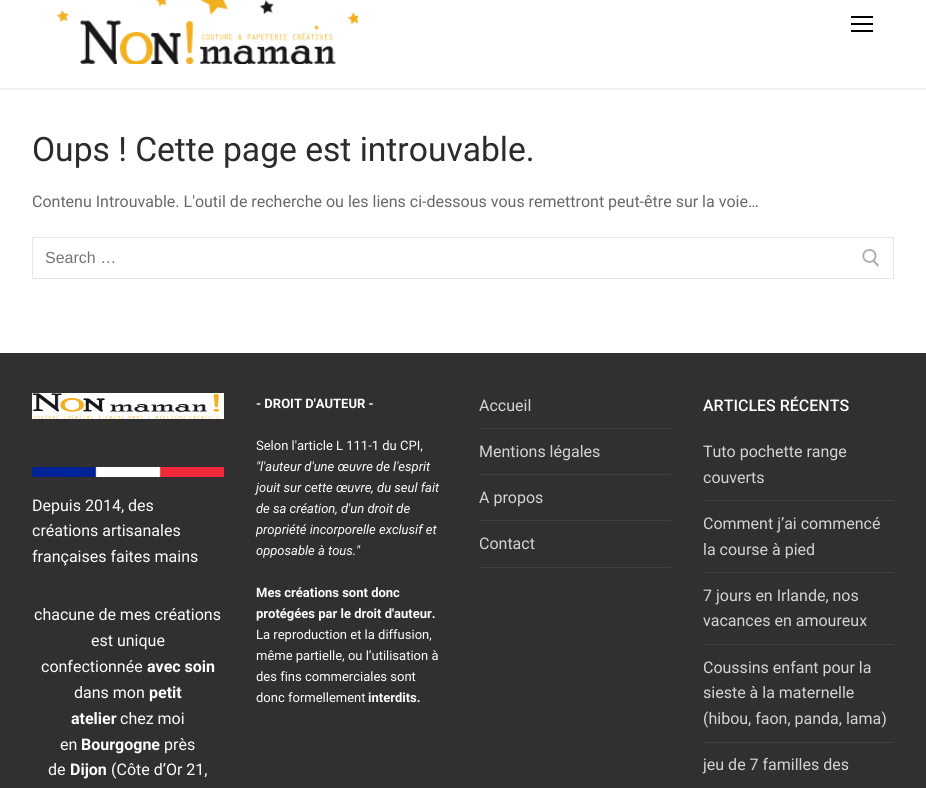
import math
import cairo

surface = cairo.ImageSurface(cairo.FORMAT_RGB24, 926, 788)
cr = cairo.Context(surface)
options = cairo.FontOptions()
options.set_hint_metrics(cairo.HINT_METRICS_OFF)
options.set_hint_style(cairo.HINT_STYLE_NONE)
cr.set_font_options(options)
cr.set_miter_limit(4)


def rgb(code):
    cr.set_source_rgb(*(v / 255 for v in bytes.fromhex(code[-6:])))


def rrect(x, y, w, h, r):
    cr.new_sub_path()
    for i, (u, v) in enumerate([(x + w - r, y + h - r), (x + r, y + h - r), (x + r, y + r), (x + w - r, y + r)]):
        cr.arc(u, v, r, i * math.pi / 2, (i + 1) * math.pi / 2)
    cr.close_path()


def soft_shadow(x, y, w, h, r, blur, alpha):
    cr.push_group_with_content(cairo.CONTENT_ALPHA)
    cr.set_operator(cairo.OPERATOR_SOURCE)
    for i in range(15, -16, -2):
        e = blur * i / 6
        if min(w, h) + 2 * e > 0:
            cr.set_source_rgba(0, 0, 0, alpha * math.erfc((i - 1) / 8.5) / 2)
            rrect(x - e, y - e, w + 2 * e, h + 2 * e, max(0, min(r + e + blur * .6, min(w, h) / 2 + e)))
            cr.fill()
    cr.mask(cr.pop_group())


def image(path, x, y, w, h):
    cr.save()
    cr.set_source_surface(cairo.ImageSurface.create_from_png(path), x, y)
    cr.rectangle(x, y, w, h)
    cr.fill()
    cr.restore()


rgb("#ffffff")
cr.paint()
cr.save()
cr.rectangle(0, 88, 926, 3)
cr.clip()
rgb("#e1e5ea")
soft_shadow(0, -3, 926, 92, 0, 1, 1)
cr.restore()
image("img/1.png", 57, 0, 301, 64)
for x, y, w, h, color in [
    (851, 23, 22, 2, "#000000"),
    (851, 16, 22, 2, "#000000"),
    (851, 30, 22, 2, "#000000"),
]:
    rgb(color)
    cr.rectangle(x, y, w, h)
    cr.fill()
rrect(32.5, 237.5, 861, 41, 0.5)
rgb("#e5e5e5")
cr.set_line_width(1)
cr.stroke()
image("img/2.png", 862, 249, 17, 18)
for x, y, w, h, color in [
    (0, 353, 926, 435, "#303030"),
    (479, 428, 192, 1, "#414141"),
    (479, 474, 192, 1, "#414141"),
    (479, 520, 192, 1, "#414141"),
    (479, 567, 192, 1, "#414141"),
    (703, 500, 191, 1, "#414141"),
    (703, 572, 191, 1, "#414141"),
    (703, 644, 191, 1, "#414141"),
    (703, 742, 191, 1, "#414141"),
]:
    rgb(color)
    cr.rectangle(x, y, w, h)
    cr.fill()
image("img/3.png", 32, 393, 192, 26)
image("img/4.png", 32, 467, 192, 10)
cr.select_font_face("Roboto")
cr.set_font_size(33.6)
rgb("#2b2b2b")
cr.move_to(32, 161)
cr.show_text("Oups ! Cette page est introuvable.")
cr.set_font_size(16)
rgb("#686868")
cr.move_to(32, 207)
cr.show_text("Contenu Introuvable. L'outil de recherche ou les liens ci-dessous vous remettront peut-être sur la voie…")
cr.select_font_face("Liberation Sans")
rgb("#757575")
cr.move_to(45, 263)
cr.show_text("Search …")
cr.select_font_face("Roboto", cairo.FONT_SLANT_NORMAL, cairo.FONT_WEIGHT_BOLD)
cr.set_font_size(13)
rgb("#fdfdfd")
cr.move_to(256, 408)
cr.show_text("- DROIT D'AUTEUR -")
cr.select_font_face("Roboto")
cr.move_to(256, 450)
cr.show_text("Selon l'article L 111-1 du CPI,")
cr.select_font_face("Roboto", cairo.FONT_SLANT_ITALIC)
for x, y, s in [
    (256, 471, "\"l'auteur d'une œuvre de l'esprit"),
    (256, 492, "jouit sur cette œuvre, du seul fait"),
    (256, 513, "de sa création, d'un droit de"),
    (256, 534, "propriété incorporelle exclusif et"),
    (256, 555, "opposable à tous.\""),
]:
    cr.move_to(x, y)
    cr.show_text(s)
cr.select_font_face("Roboto", cairo.FONT_SLANT_NORMAL, cairo.FONT_WEIGHT_BOLD)
cr.move_to(256, 597)
cr.show_text("Mes créations sont donc")
cr.move_to(256, 618)
cr.show_text("protégées par le droit d'auteur.")
cr.select_font_face("Roboto")
for x, y, s in [
    (256, 639, "La reproduction et la diffusion,"),
    (256, 660, "même partielle, ou l’utilisation à"),
    (256, 681, "des fins commerciales sont"),
    (256, 702, "donc formellement"),
]:
    cr.move_to(x, y)
    cr.show_text(s)
cr.select_font_face("Roboto", cairo.FONT_SLANT_NORMAL, cairo.FONT_WEIGHT_BOLD)
cr.move_to(368, 702)
cr.show_text("interdits.")
cr.select_font_face("Roboto")
cr.set_font_size(16)
rgb("#d4d4d4")
for x, y, s in [
    (479, 411, "Accueil"),
    (479, 457, "Mentions légales"),
    (479, 503, "A propos"),
    (479, 549, "Contact"),
]:
    cr.move_to(x, y)
    cr.show_text(s)
cr.select_font_face("Roboto Medium")
rgb("#fdfdfd")
cr.move_to(703, 411)
cr.show_text("ARTICLES RÉCENTS")
cr.select_font_face("Roboto")
rgb("#d4d4d4")
for x, y, s in [
    (703, 457, "Tuto pochette range"),
    (703, 483, "couverts"),
    (703, 529, "Comment j’ai commencé"),
    (703, 555, "la course à pied"),
    (703, 601, "7 jours en Irlande, nos"),
    (703, 626, "vacances en amoureux"),
    (703, 673, "Coussins enfant pour la"),
    (703, 698, "sieste à la maternelle"),
    (703, 724, "(hibou, faon, panda, lama)"),
    (703, 770, "jeu de 7 familles des"),
]:
    cr.move_to(x, y)
    cr.show_text(s)
rgb("#fdfdfd")
for x, y, s in [
    (32, 511, "Depuis 2014, des"),
    (32, 536, "créations artisanales"),
    (32, 562, "françaises faites mains"),
    (34, 620, "chacune de mes créations"),
    (91, 646, "est unique"),
    (41, 672, "confectionnée"),
]:
    cr.move_to(x, y)
    cr.show_text(s)
cr.select_font_face("Roboto", cairo.FONT_SLANT_NORMAL, cairo.FONT_WEIGHT_BOLD)
cr.move_to(147, 672)
cr.show_text("avec soin")
cr.select_font_face("Roboto")
cr.move_to(74, 698)
cr.show_text("dans mon")
cr.select_font_face("Roboto", cairo.FONT_SLANT_NORMAL, cairo.FONT_WEIGHT_BOLD)
cr.move_to(149, 698)
cr.show_text("petit")
cr.move_to(71, 724)
cr.show_text("atelier")
cr.select_font_face("Roboto")
cr.move_to(120, 724)
cr.show_text("chez moi")
cr.move_to(60, 750)
cr.show_text("en")
cr.select_font_face("Roboto", cairo.FONT_SLANT_NORMAL, cairo.FONT_WEIGHT_BOLD)
cr.move_to(81, 750)
cr.show_text("Bourgogne")
cr.select_font_face("Roboto")
cr.move_to(164, 750)
cr.show_text("près")
cr.move_to(48, 775)
cr.show_text("de")
cr.select_font_face("Roboto", cairo.FONT_SLANT_NORMAL, cairo.FONT_WEIGHT_BOLD)
cr.move_to(70, 775)
cr.show_text("Dijon")
cr.select_font_face("Roboto")
cr.move_to(111, 775)
cr.show_text("(Côte d’Or 21,")
surface.write_to_png("page.png")
